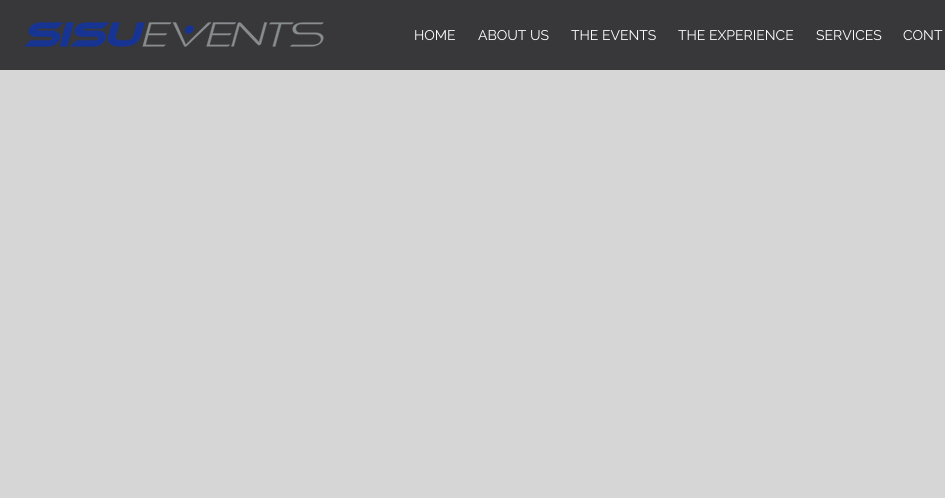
import math
import cairo

surface = cairo.ImageSurface(cairo.FORMAT_RGB24, 945, 498)
cr = cairo.Context(surface)
options = cairo.FontOptions()
options.set_hint_metrics(cairo.HINT_METRICS_OFF)
options.set_hint_style(cairo.HINT_STYLE_NONE)
cr.set_font_options(options)
cr.set_miter_limit(4)


def rgb(code):
    cr.set_source_rgb(*(v / 255 for v in bytes.fromhex(code[-6:])))


def image(path, x, y, w, h):
    cr.save()
    cr.set_source_surface(cairo.ImageSurface.create_from_png(path), x, y)
    cr.rectangle(x, y, w, h)
    cr.fill()
    cr.restore()


rgb("#d6d6d6")
cr.paint()
rgb("#38383a")
cr.rectangle(0, 0, 945, 70)
cr.fill()
image("img/1.png", 24, 22, 300, 25)
cr.select_font_face("Raleway")
cr.set_font_size(14)
rgb("#ffffff")
for x, y, s in [
    (414, 40, "HOME"),
    (478, 40, "ABOUT US"),
    (571, 40, "THE EVENTS"),
    (678, 40, "THE EXPERIENCE"),
    (816, 40, "SERVICES"),
    (903, 40, "CONT"),
]:
    cr.move_to(x, y)
    cr.show_text(s)
surface.write_to_png("page.png")
